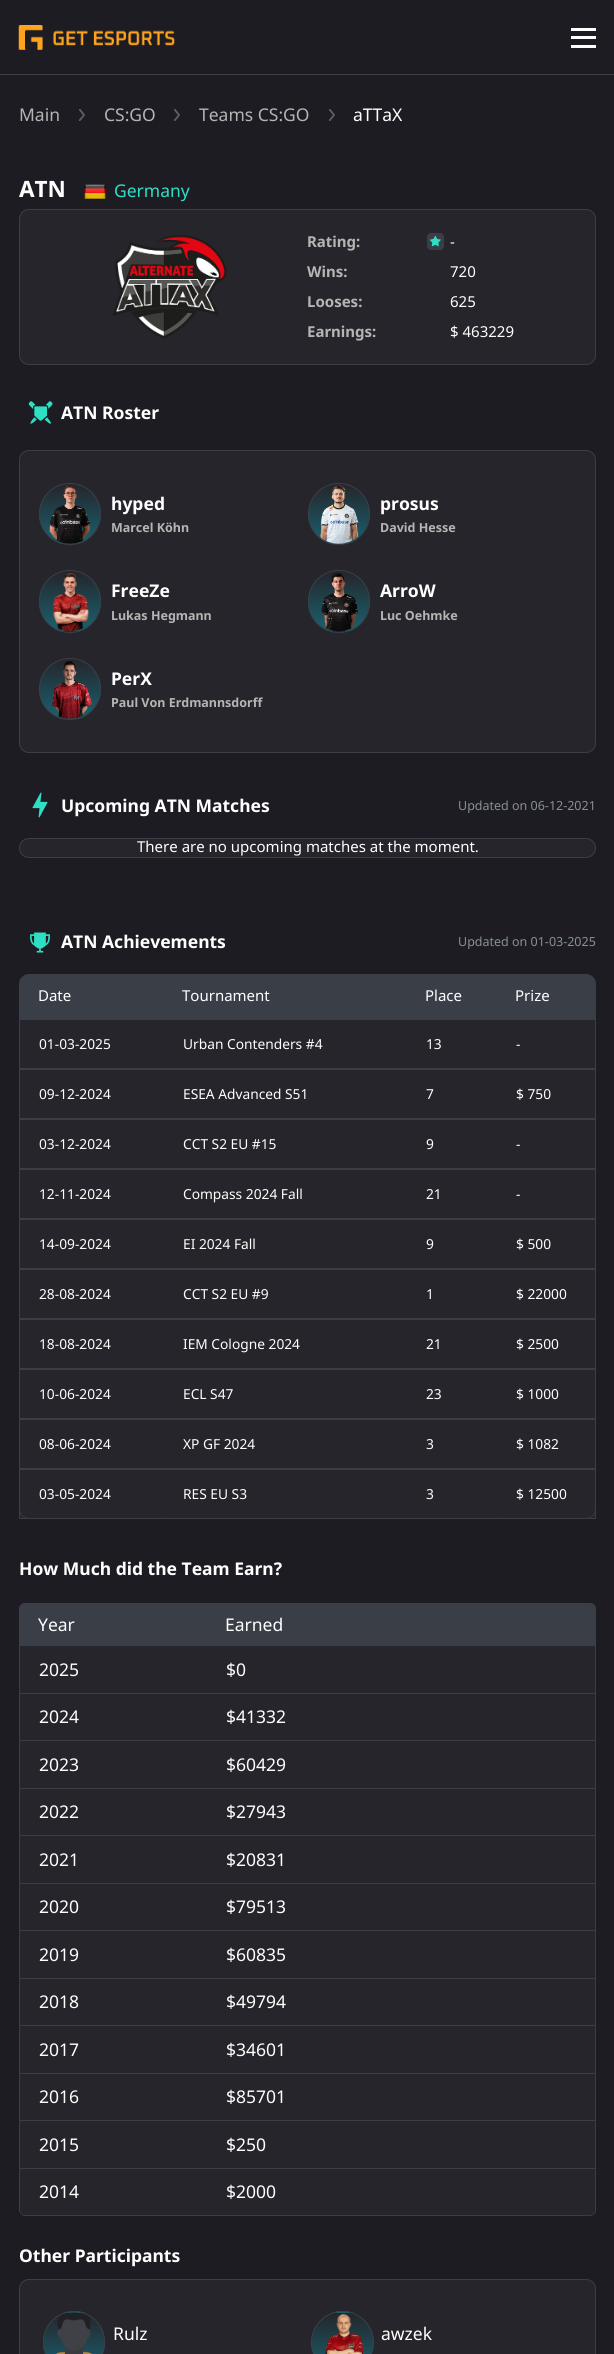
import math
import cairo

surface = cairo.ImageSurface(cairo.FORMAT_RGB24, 614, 2354)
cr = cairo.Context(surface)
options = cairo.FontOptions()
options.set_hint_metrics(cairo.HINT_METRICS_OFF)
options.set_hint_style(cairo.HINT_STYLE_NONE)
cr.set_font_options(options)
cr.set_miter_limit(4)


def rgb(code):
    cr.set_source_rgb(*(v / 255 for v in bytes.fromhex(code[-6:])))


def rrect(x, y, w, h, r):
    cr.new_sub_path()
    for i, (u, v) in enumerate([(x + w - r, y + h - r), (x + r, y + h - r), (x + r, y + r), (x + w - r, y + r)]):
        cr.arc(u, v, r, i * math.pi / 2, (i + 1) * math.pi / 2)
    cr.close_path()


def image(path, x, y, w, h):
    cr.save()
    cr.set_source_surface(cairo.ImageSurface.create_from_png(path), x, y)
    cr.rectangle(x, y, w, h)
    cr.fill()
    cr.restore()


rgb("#1c1c22")
cr.paint()
image("img/1.png", 18, 25, 157, 25)
for x, y, w, h, color in [
    (571, 28, 25, 3, "#ffffff"),
    (571, 36, 25, 3, "#ffffff"),
    (571, 45, 25, 3, "#ffffff"),
    (0, 74, 614, 1, "#3a3f47"),
]:
    rgb(color)
    cr.rectangle(x, y, w, h)
    cr.fill()
image("img/2.png", 79, 109, 6, 12)
image("img/2.png", 174, 109, 6, 12)
image("img/2.png", 329, 109, 6, 12)
image("img/3.png", 84, 184, 22, 16)
rgb("#25252b")
rrect(19.5, 209.5, 576, 155, 9.5)
cr.fill_preserve()
rgb("#3a3f47")
cr.set_line_width(1)
cr.stroke()
image("img/4.png", 112, 235, 115, 104)
image("img/5.png", 427, 233, 17, 17)
image("img/6.png", 28, 401, 25, 23)
rgb("#25252b")
rrect(19.5, 450.5, 576, 302, 9.5)
cr.fill_preserve()
rgb("#3a3f47")
cr.stroke()
cr.save()
rrect(39, 483, 62, 62, 31)
cr.clip()
gradient = cairo.LinearGradient(70, 552, 70, 484)
gradient.add_color_stop_rgba(0, 0.09, 0.416, 0.475, 1)
gradient.add_color_stop_rgba(1, 0.145, 0.145, 0.169, 1)
cr.set_source(gradient)
cr.rectangle(39, 484, 62, 60)
cr.fill()
cr.restore()
cr.arc(70, 514, 30.5, 0, 2 * math.pi)
cr.stroke()
image("img/7.png", 49, 485, 42, 59)
cr.save()
rrect(308, 483, 62, 62, 31)
cr.clip()
gradient = cairo.LinearGradient(339, 552, 339, 484)
gradient.add_color_stop_rgba(0, 0.09, 0.416, 0.475, 1)
gradient.add_color_stop_rgba(1, 0.145, 0.145, 0.169, 1)
cr.set_source(gradient)
cr.rectangle(308, 484, 62, 60)
cr.fill()
cr.restore()
cr.arc(339, 514, 30.5, 0, 2 * math.pi)
cr.stroke()
image("img/8.png", 320, 485, 39, 59)
cr.save()
rrect(39, 570, 62, 63, 31)
cr.clip()
gradient = cairo.LinearGradient(70, 640, 70, 571)
gradient.add_color_stop_rgba(0, 0.09, 0.416, 0.475, 1)
gradient.add_color_stop_rgba(1, 0.145, 0.145, 0.169, 1)
cr.set_source(gradient)
cr.rectangle(39, 571, 62, 60)
cr.fill()
cr.restore()
rrect(39.5, 570.5, 61, 62, 30.5)
cr.stroke()
image("img/9.png", 52, 573, 37, 59)
cr.save()
rrect(308, 570, 62, 63, 31)
cr.clip()
gradient = cairo.LinearGradient(339, 640, 339, 571)
gradient.add_color_stop_rgba(0, 0.09, 0.416, 0.475, 1)
gradient.add_color_stop_rgba(1, 0.145, 0.145, 0.169, 1)
cr.set_source(gradient)
cr.rectangle(308, 571, 62, 60)
cr.fill()
cr.restore()
rrect(308.5, 570.5, 61, 62, 30.5)
cr.stroke()
image("img/10.png", 321, 572, 38, 60)
cr.save()
rrect(39, 658, 62, 62, 31)
cr.clip()
gradient = cairo.LinearGradient(70, 727, 70, 659)
gradient.add_color_stop_rgba(0, 0.09, 0.416, 0.475, 1)
gradient.add_color_stop_rgba(1, 0.145, 0.145, 0.169, 1)
cr.set_source(gradient)
cr.rectangle(39, 659, 62, 60)
cr.fill()
cr.restore()
cr.arc(70, 689, 30.5, 0, 2 * math.pi)
cr.stroke()
image("img/11.png", 52, 661, 41, 58)
image("img/12.png", 32, 792, 16, 26)
rgb("#25252b")
rrect(19.5, 838.5, 576, 19, 9.5)
cr.fill_preserve()
rgb("#3a3f47")
cr.stroke()
image("img/13.png", 30, 932, 20, 21)
cr.new_path()
cr.move_to(29, 974)
cr.line_to(164, 974)
cr.line_to(164, 1019)
cr.line_to(19, 1019)
cr.line_to(19, 984)
cr.curve_to(19, 978.5, 23.5, 974, 29, 974)
cr.close_path()
cr.fill()
cr.rectangle(164, 974, 332, 45)
cr.fill()
cr.new_path()
cr.move_to(496, 974)
cr.line_to(586, 974)
cr.curve_to(591.5, 974, 596, 978.5, 596, 984)
cr.line_to(596, 1019)
cr.line_to(496, 1019)
cr.close_path()
cr.fill()
rgb("#25252b")
cr.rectangle(19.5, 1019.5, 576, 49)
cr.fill_preserve()
rgb("#3a3f47")
cr.stroke()
rgb("#25252b")
cr.rectangle(19.5, 1069.5, 576, 49)
cr.fill_preserve()
rgb("#3a3f47")
cr.stroke()
rgb("#25252b")
cr.rectangle(19.5, 1119.5, 576, 49)
cr.fill_preserve()
rgb("#3a3f47")
cr.stroke()
rgb("#25252b")
cr.rectangle(19.5, 1169.5, 576, 49)
cr.fill_preserve()
rgb("#3a3f47")
cr.stroke()
rgb("#25252b")
cr.rectangle(19.5, 1219.5, 576, 49)
cr.fill_preserve()
rgb("#3a3f47")
cr.stroke()
rgb("#25252b")
cr.rectangle(19.5, 1269.5, 576, 49)
cr.fill_preserve()
rgb("#3a3f47")
cr.stroke()
rgb("#25252b")
cr.rectangle(19.5, 1319.5, 576, 49)
cr.fill_preserve()
rgb("#3a3f47")
cr.stroke()
rgb("#25252b")
cr.rectangle(19.5, 1369.5, 576, 49)
cr.fill_preserve()
rgb("#3a3f47")
cr.stroke()
rgb("#25252b")
cr.rectangle(19.5, 1419.5, 576, 49)
cr.fill_preserve()
rgb("#3a3f47")
cr.stroke()
rgb("#25252b")
cr.rectangle(19.5, 1469.5, 576, 49)
cr.fill_preserve()
rgb("#3a3f47")
cr.stroke()
cr.new_path()
cr.move_to(164, 1519)
cr.line_to(27, 1519)
cr.curve_to(25, 1518, 23, 1517, 22, 1516)
cr.line_to(22, 1515)
cr.curve_to(24, 1517, 26, 1518, 29, 1518)
cr.line_to(162, 1518)
cr.line_to(162, 1517)
cr.close_path()
cr.fill()
cr.new_path()
cr.move_to(20, 1470)
cr.line_to(19, 1469)
cr.line_to(19, 1509)
cr.curve_to(19, 1511, 20, 1514, 22, 1516)
cr.line_to(22, 1515)
cr.curve_to(21, 1514, 20, 1511, 20, 1509)
cr.close_path()
cr.fill()
cr.new_path()
cr.move_to(593, 1516)
cr.curve_to(595, 1514, 596, 1511, 596, 1509)
cr.line_to(596, 1469)
cr.line_to(595, 1470)
cr.line_to(595, 1509)
cr.curve_to(595, 1511, 594, 1514, 593, 1515)
cr.close_path()
cr.fill()
cr.new_path()
cr.move_to(593, 1516)
cr.curve_to(592, 1517, 590, 1518, 588, 1519)
cr.line_to(496, 1519)
cr.line_to(498, 1517)
cr.line_to(498, 1518)
cr.line_to(586, 1518)
cr.curve_to(589, 1518, 591, 1517, 593, 1515)
cr.close_path()
cr.fill()
cr.new_path()
cr.move_to(25, 1603)
cr.line_to(590, 1603)
cr.curve_to(593.5, 1603, 596, 1605.5, 596, 1609)
cr.line_to(596, 1646)
cr.line_to(19, 1646)
cr.line_to(19, 1609)
cr.curve_to(19, 1605.5, 21.5, 1603, 25, 1603)
cr.close_path()
cr.fill()
for x, y, w, h, color in [
    (20, 1646, 575, 47, "#25252b"),
    (595, 1646, 1, 523, "#3a3f47"),
    (19, 1693, 577, 1, "#3a3f47"),
    (19, 1646, 1, 48, "#3a3f47"),
    (20, 1694, 575, 46, "#25252b"),
    (19, 1740, 577, 1, "#3a3f47"),
    (19, 1694, 1, 47, "#3a3f47"),
    (20, 1741, 575, 47, "#25252b"),
    (19, 1788, 577, 1, "#3a3f47"),
    (19, 1741, 1, 48, "#3a3f47"),
    (20, 1789, 575, 46, "#25252b"),
    (19, 1835, 577, 1, "#3a3f47"),
    (19, 1789, 1, 47, "#3a3f47"),
    (20, 1836, 575, 47, "#25252b"),
    (19, 1883, 577, 1, "#3a3f47"),
    (19, 1836, 1, 48, "#3a3f47"),
    (20, 1884, 575, 46, "#25252b"),
    (19, 1930, 577, 1, "#3a3f47"),
    (19, 1884, 1, 47, "#3a3f47"),
    (20, 1931, 575, 47, "#25252b"),
    (19, 1978, 577, 1, "#3a3f47"),
    (19, 1931, 1, 48, "#3a3f47"),
    (20, 1979, 575, 46, "#25252b"),
    (19, 2025, 577, 1, "#3a3f47"),
    (19, 1979, 1, 47, "#3a3f47"),
    (20, 2026, 575, 47, "#25252b"),
    (19, 2073, 577, 1, "#3a3f47"),
    (19, 2026, 1, 48, "#3a3f47"),
    (20, 2074, 575, 46, "#25252b"),
    (19, 2120, 577, 1, "#3a3f47"),
    (19, 2074, 1, 47, "#3a3f47"),
    (20, 2121, 575, 47, "#25252b"),
    (19, 2168, 577, 1, "#3a3f47"),
    (19, 2121, 1, 48, "#3a3f47"),
]:
    rgb(color)
    cr.rectangle(x, y, w, h)
    cr.fill()
rgb("#25252b")
cr.new_path()
cr.move_to(20, 2169)
cr.line_to(595, 2169)
cr.line_to(595, 2210)
cr.curve_to(595, 2213, 593, 2215, 590, 2215)
cr.line_to(25, 2215)
cr.curve_to(22, 2215, 20, 2213, 20, 2210)
cr.close_path()
cr.fill()
rgb("#3a3f47")
cr.set_fill_rule(cairo.FILL_RULE_EVEN_ODD)
cr.new_path()
cr.move_to(19, 2169)
cr.line_to(596, 2169)
cr.line_to(596, 2210)
cr.curve_to(596, 2213, 593, 2216, 590, 2216)
cr.line_to(25, 2216)
cr.curve_to(22, 2216, 19, 2213, 19, 2210)
cr.close_path()
cr.move_to(20, 2169)
cr.line_to(595, 2169)
cr.line_to(595, 2210)
cr.curve_to(595, 2213, 593, 2215, 590, 2215)
cr.line_to(25, 2215)
cr.curve_to(22, 2215, 20, 2213, 20, 2210)
cr.close_path()
cr.fill()
rgb("#25252b")
rrect(19.5, 2279.5, 576, 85, 9.5)
cr.fill_preserve()
rgb("#3a3f47")
cr.stroke()
cr.save()
cr.set_fill_rule(cairo.FILL_RULE_WINDING)
rrect(43, 2311, 62, 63, 31)
cr.clip()
gradient = cairo.LinearGradient(74, 2321, 74, 2253)
gradient.add_color_stop_rgba(0, 0.09, 0.416, 0.475, 1)
gradient.add_color_stop_rgba(1, 0.145, 0.145, 0.169, 1)
cr.set_source(gradient)
cr.rectangle(63, 2311, 22, 2)
cr.fill()
gradient = cairo.LinearGradient(74, 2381, 74, 2313)
gradient.add_color_stop_rgba(0, 0.09, 0.416, 0.475, 1)
gradient.add_color_stop_rgba(1, 0.145, 0.145, 0.169, 1)
cr.set_source(gradient)
cr.rectangle(43, 2313, 62, 41)
cr.fill()
cr.restore()
rrect(43.5, 2311.5, 61, 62, 30.5)
cr.stroke()
image("img/14.png", 55, 2312, 37, 42)
cr.save()
cr.set_fill_rule(cairo.FILL_RULE_WINDING)
rrect(311, 2311, 63, 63, 31.5)
cr.clip()
gradient = cairo.LinearGradient(343, 2321, 343, 2253)
gradient.add_color_stop_rgba(0, 0.09, 0.416, 0.475, 1)
gradient.add_color_stop_rgba(1, 0.145, 0.145, 0.169, 1)
cr.set_source(gradient)
cr.rectangle(331, 2311, 23, 2)
cr.fill()
gradient = cairo.LinearGradient(343, 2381, 343, 2313)
gradient.add_color_stop_rgba(0, 0.09, 0.416, 0.475, 1)
gradient.add_color_stop_rgba(1, 0.145, 0.145, 0.169, 1)
cr.set_source(gradient)
cr.rectangle(311, 2313, 63, 41)
cr.fill()
cr.restore()
cr.arc(342.5, 2342.5, 31, 0, 2 * math.pi)
cr.stroke()
image("img/15.png", 325, 2314, 39, 40)
cr.select_font_face("Noto Sans")
cr.set_font_size(17.5)
rgb("#b5b5b5")
for x, y, s in [
    (19, 121, "Main"),
    (104, 121, "CS:GO"),
    (199, 121, "Teams CS:GO"),
]:
    cr.move_to(x, y)
    cr.show_text(s)
rgb("#ffffff")
cr.move_to(353, 121)
cr.show_text("aTTaX")
cr.select_font_face("Noto Sans", cairo.FONT_SLANT_NORMAL, cairo.FONT_WEIGHT_BOLD)
cr.set_font_size(22.5)
cr.move_to(19, 197)
cr.show_text("ATN")
cr.select_font_face("Noto Sans")
cr.set_font_size(17.5)
rgb("#2fdfc5")
cr.move_to(114, 197)
cr.show_text("Germany")
cr.select_font_face("Noto Sans", cairo.FONT_SLANT_NORMAL, cairo.FONT_WEIGHT_BOLD)
cr.set_font_size(15)
rgb("#b5b5b5")
cr.move_to(307, 247)
cr.show_text("Rating:")
cr.select_font_face("Noto Sans")
rgb("#ffffff")
cr.move_to(450, 247)
cr.show_text("-")
cr.select_font_face("Noto Sans", cairo.FONT_SLANT_NORMAL, cairo.FONT_WEIGHT_BOLD)
rgb("#b5b5b5")
cr.move_to(307, 277)
cr.show_text("Wins:")
cr.select_font_face("Noto Sans")
rgb("#ffffff")
cr.move_to(450, 277)
cr.show_text("720")
cr.select_font_face("Noto Sans", cairo.FONT_SLANT_NORMAL, cairo.FONT_WEIGHT_BOLD)
rgb("#b5b5b5")
cr.move_to(307, 307)
cr.show_text("Looses:")
cr.select_font_face("Noto Sans")
rgb("#ffffff")
cr.move_to(450, 307)
cr.show_text("625")
cr.select_font_face("Noto Sans", cairo.FONT_SLANT_NORMAL, cairo.FONT_WEIGHT_BOLD)
rgb("#b5b5b5")
cr.move_to(307, 337)
cr.show_text("Earnings:")
cr.select_font_face("Noto Sans")
rgb("#ffffff")
cr.move_to(450, 337)
cr.show_text("$ 463229")
cr.select_font_face("Noto Sans", cairo.FONT_SLANT_NORMAL, cairo.FONT_WEIGHT_BOLD)
cr.set_font_size(17.5)
cr.move_to(61, 419)
cr.show_text("ATN Roster")
cr.move_to(111, 510)
cr.show_text("hyped")
cr.set_font_size(12.5)
rgb("#b5b5b5")
cr.move_to(111, 532)
cr.show_text("Marcel Köhn")
cr.set_font_size(17.5)
rgb("#ffffff")
cr.move_to(380, 510)
cr.show_text("prosus")
cr.set_font_size(12.5)
rgb("#b5b5b5")
cr.move_to(380, 532)
cr.show_text("David Hesse")
cr.set_font_size(17.5)
rgb("#ffffff")
cr.move_to(111, 597)
cr.show_text("FreeZe")
cr.set_font_size(12.5)
rgb("#b5b5b5")
cr.move_to(111, 620)
cr.show_text("Lukas Hegmann")
cr.set_font_size(17.5)
rgb("#ffffff")
cr.move_to(380, 597)
cr.show_text("ArroW")
cr.set_font_size(12.5)
rgb("#b5b5b5")
cr.move_to(380, 620)
cr.show_text("Luc Oehmke")
cr.set_font_size(17.5)
rgb("#ffffff")
cr.move_to(111, 685)
cr.show_text("PerX")
cr.set_font_size(12.5)
rgb("#b5b5b5")
cr.move_to(111, 707)
cr.show_text("Paul Von Erdmannsdorff")
cr.set_font_size(17.5)
rgb("#ffffff")
cr.move_to(61, 812)
cr.show_text("Upcoming ATN Matches")
cr.select_font_face("Noto Sans")
cr.set_font_size(12.5)
rgb("#888f9a")
cr.move_to(458, 810)
cr.show_text("Updated on 06-12-2021")
cr.set_font_size(15)
rgb("#ffffff")
cr.move_to(137, 852)
cr.show_text("There are no upcoming matches at the moment.")
cr.select_font_face("Noto Sans", cairo.FONT_SLANT_NORMAL, cairo.FONT_WEIGHT_BOLD)
cr.set_font_size(17.5)
cr.move_to(61, 948)
cr.show_text("ATN Achievements")
cr.select_font_face("Noto Sans")
cr.set_font_size(12.5)
rgb("#888f9a")
cr.move_to(458, 946)
cr.show_text("Updated on 01-03-2025")
cr.set_font_size(15)
rgb("#ffffff")
for x, y, s in [
    (38, 1001, "Date"),
    (182, 1001, "Tournament"),
    (425, 1001, "Place"),
    (515, 1001, "Prize"),
]:
    cr.move_to(x, y)
    cr.show_text(s)
cr.set_font_size(13.75)
for x, y, s in [
    (39, 1049, "01-03-2025"),
    (183, 1049, "Urban Contenders #4"),
    (426, 1049, "13"),
    (516, 1049, "-"),
    (39, 1099, "09-12-2024"),
    (183, 1099, "ESEA Advanced S51"),
    (426, 1099, "7"),
    (516, 1099, "$ 750"),
    (39, 1149, "03-12-2024"),
    (183, 1149, "CCT S2 EU #15"),
    (426, 1149, "9"),
    (516, 1149, "-"),
    (39, 1199, "12-11-2024"),
    (183, 1199, "Compass 2024 Fall"),
    (426, 1199, "21"),
    (516, 1199, "-"),
    (39, 1249, "14-09-2024"),
    (183, 1249, "EI 2024 Fall"),
    (426, 1249, "9"),
    (516, 1249, "$ 500"),
    (39, 1299, "28-08-2024"),
    (183, 1299, "CCT S2 EU #9"),
    (426, 1299, "1"),
    (516, 1299, "$ 22000"),
    (39, 1349, "18-08-2024"),
    (183, 1349, "IEM Cologne 2024"),
    (426, 1349, "21"),
    (516, 1349, "$ 2500"),
    (39, 1399, "10-06-2024"),
    (183, 1399, "ECL S47"),
    (426, 1399, "23"),
    (516, 1399, "$ 1000"),
    (39, 1449, "08-06-2024"),
    (183, 1449, "XP GF 2024"),
    (426, 1449, "3"),
    (516, 1449, "$ 1082"),
    (39, 1499, "03-05-2024"),
    (183, 1499, "RES EU S3"),
    (426, 1499, "3"),
    (516, 1499, "$ 12500"),
]:
    cr.move_to(x, y)
    cr.show_text(s)
cr.select_font_face("Noto Sans", cairo.FONT_SLANT_NORMAL, cairo.FONT_WEIGHT_BOLD)
cr.set_font_size(17.5)
cr.move_to(19, 1575)
cr.show_text("How Much did the Team Earn?")
cr.select_font_face("Noto Sans")
for x, y, s in [
    (38, 1631, "Year"),
    (225, 1631, "Earned"),
    (39, 1676, "2025"),
    (226, 1676, "$0"),
    (39, 1723, "2024"),
    (226, 1723, "$41332"),
    (39, 1771, "2023"),
    (226, 1771, "$60429"),
    (39, 1818, "2022"),
    (226, 1818, "$27943"),
    (39, 1866, "2021"),
    (226, 1866, "$20831"),
    (39, 1913, "2020"),
    (226, 1913, "$79513"),
    (39, 1961, "2019"),
    (226, 1961, "$60835"),
    (39, 2008, "2018"),
    (226, 2008, "$49794"),
    (39, 2056, "2017"),
    (226, 2056, "$34601"),
    (39, 2103, "2016"),
    (226, 2103, "$85701"),
    (39, 2151, "2015"),
    (226, 2151, "$250"),
    (39, 2198, "2014"),
    (226, 2198, "$2000"),
]:
    cr.move_to(x, y)
    cr.show_text(s)
cr.select_font_face("Noto Sans", cairo.FONT_SLANT_NORMAL, cairo.FONT_WEIGHT_BOLD)
cr.move_to(19, 2262)
cr.show_text("Other Participants")
cr.select_font_face("Noto Sans")
cr.move_to(113, 2340)
cr.show_text("Rulz")
cr.move_to(381, 2340)
cr.show_text("awzek")
surface.write_to_png("page.png")
